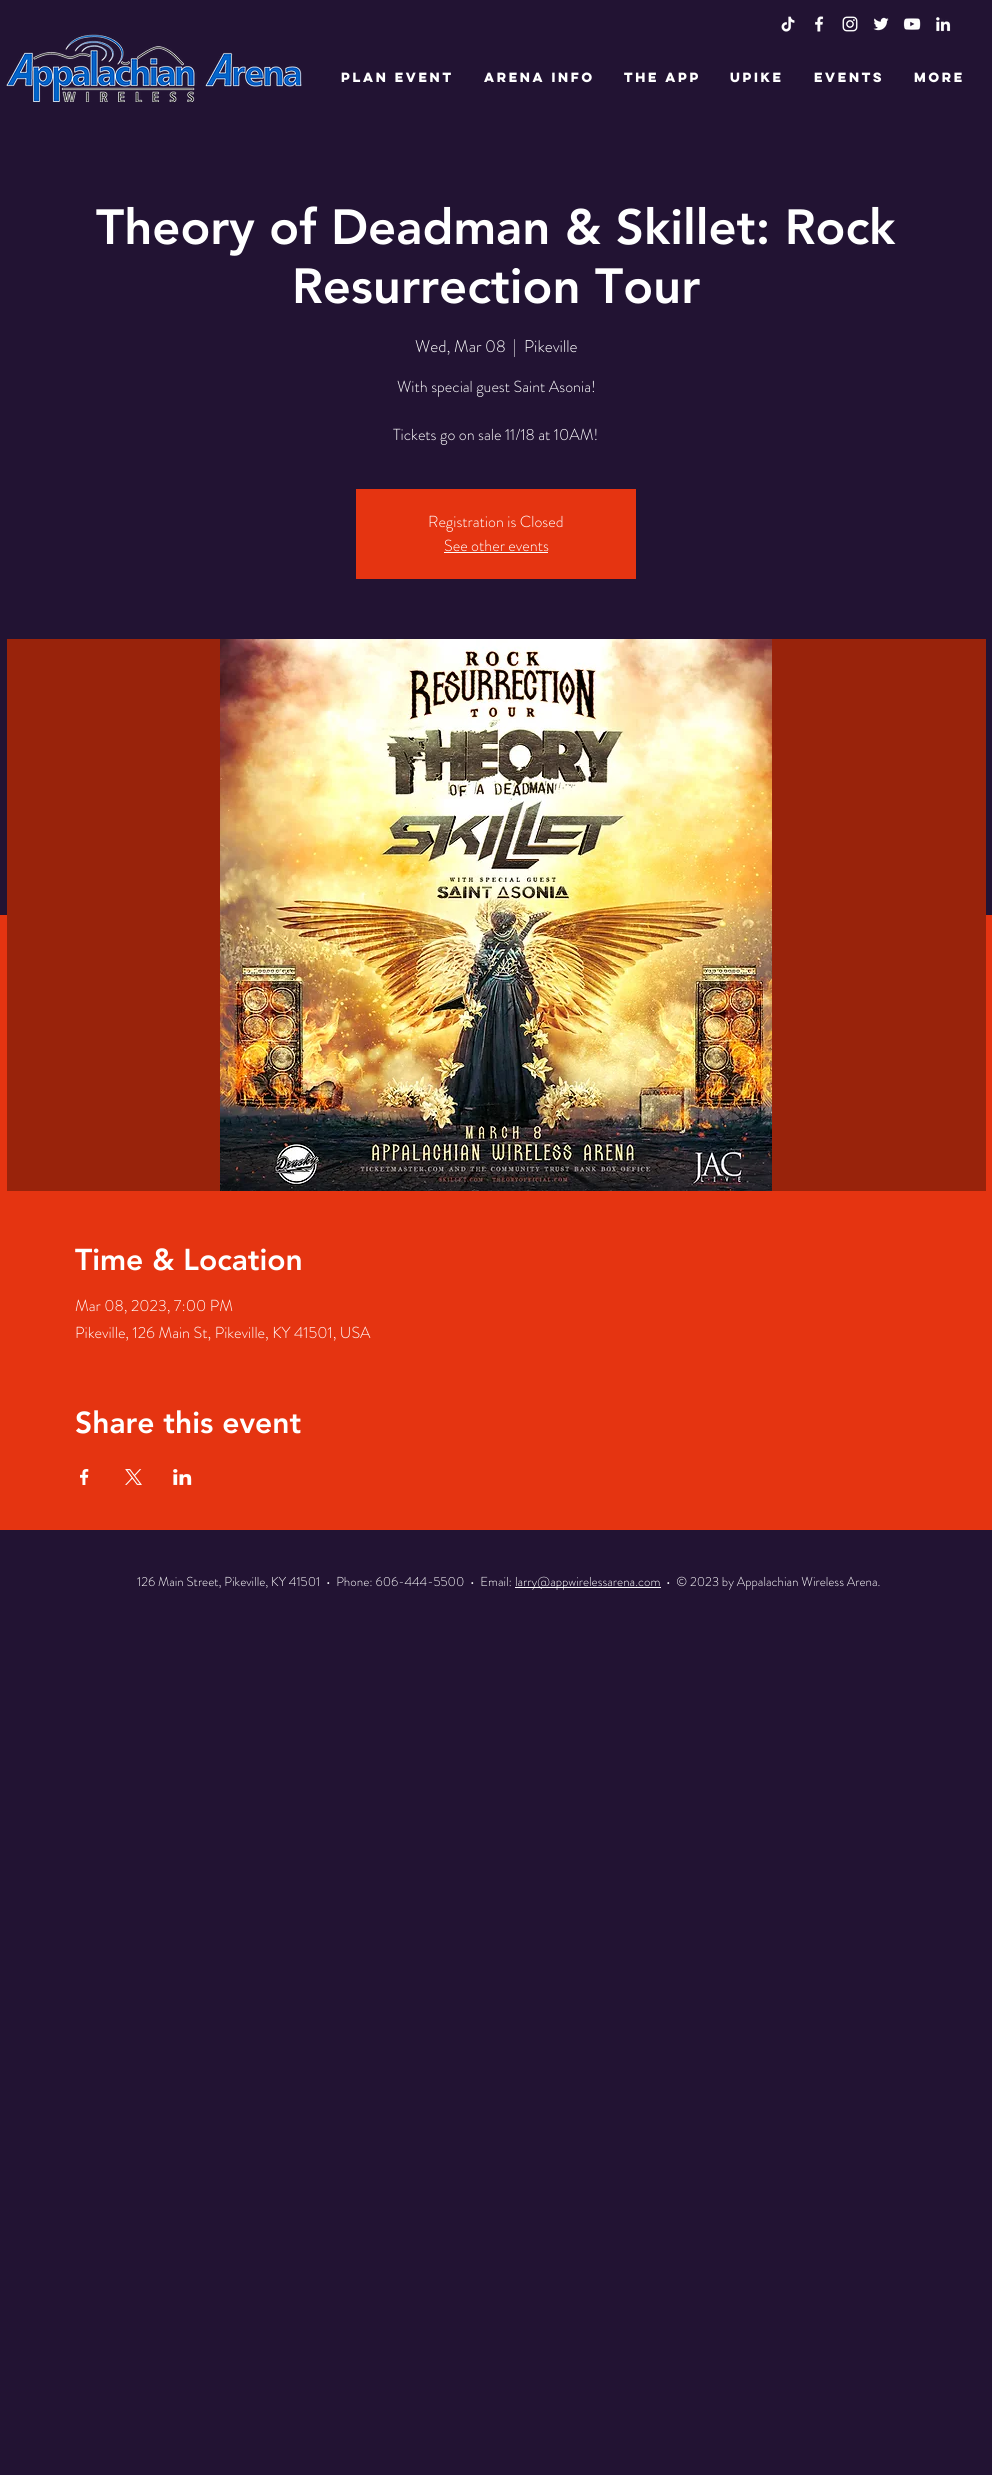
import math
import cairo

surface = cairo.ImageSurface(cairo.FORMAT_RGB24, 992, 2475)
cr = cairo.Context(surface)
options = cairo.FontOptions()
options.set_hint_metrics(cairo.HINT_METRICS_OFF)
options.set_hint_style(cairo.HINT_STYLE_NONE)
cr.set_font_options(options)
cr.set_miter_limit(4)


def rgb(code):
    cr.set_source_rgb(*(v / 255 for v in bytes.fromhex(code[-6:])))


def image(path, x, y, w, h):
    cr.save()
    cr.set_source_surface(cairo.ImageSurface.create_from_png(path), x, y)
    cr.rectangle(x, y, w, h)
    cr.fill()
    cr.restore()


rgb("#221333")
cr.paint()
image("img/1.png", 781, 16, 14, 16)
image("img/2.png", 815, 16, 9, 16)
image("img/3.png", 842, 16, 16, 16)
image("img/4.png", 873, 17, 16, 14)
image("img/5.png", 903, 18, 18, 12)
image("img/6.png", 936, 17, 15, 15)
image("img/7.png", 6, 34, 296, 68)
for x, y, w, h, color in [
    (356, 489, 280, 90, "#e53411"),
    (444, 552, 104, 1, "#ffffff"),
    (0, 915, 992, 615, "#e53411"),
    (7, 639, 979, 552, "#99230b"),
]:
    rgb(color)
    cr.rectangle(x, y, w, h)
    cr.fill()
image("img/8.png", 220, 639, 552, 552)
image("img/9.png", 80, 1469, 9, 16)
image("img/10.png", 125, 1469, 17, 16)
image("img/11.png", 173, 1469, 19, 16)
rgb("#ffffff")
cr.rectangle(515, 1587, 146, 1)
cr.fill()
cr.select_font_face("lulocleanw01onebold", cairo.FONT_SLANT_NORMAL, cairo.FONT_WEIGHT_BOLD)
cr.set_font_size(12)
for x, y, s in [
    (341, 82, "PLAN EVENT"),
    (484, 82, "ARENA INFO"),
    (624, 82, "THE APP"),
    (730, 82, "UPIKE"),
    (814, 82, "Events"),
    (914, 82, "More"),
]:
    cr.move_to(x, y)
    cr.show_text(s)
cr.select_font_face("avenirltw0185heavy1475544 Black")
cr.set_font_size(49)
cr.move_to(96, 244)
cr.show_text("Theory of Deadman & Skillet: Rock")
cr.move_to(292, 303)
cr.show_text("Resurrection Tour")
cr.select_font_face("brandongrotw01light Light")
cr.set_font_size(17)
for x, y, s in [
    (415, 352, "Wed, Mar 08"),
    (513, 352, "|"),
    (524, 352, "Pikeville"),
]:
    cr.move_to(x, y)
    cr.show_text(s)
cr.set_font_size(16)
for x, y, s in [
    (397, 392, "With special guest Saint Asonia!"),
    (393, 440, "Tickets go on sale 11/18 at 10AM!"),
    (428, 527, "Registration is Closed"),
    (444, 551, "See other events"),
]:
    cr.move_to(x, y)
    cr.show_text(s)
cr.select_font_face("avenirltw0185heavy1475544 Black")
cr.set_font_size(30)
cr.move_to(75, 1270)
cr.show_text("Time & Location")
cr.select_font_face("brandongrotw01light Light")
cr.set_font_size(16)
cr.move_to(75, 1311)
cr.show_text("Mar 08, 2023, 7:00 PM")
cr.move_to(75, 1338)
cr.show_text("Pikeville, 126 Main St, Pikeville, KY 41501, USA")
cr.select_font_face("avenirltw0185heavy1475544 Black")
cr.set_font_size(30)
cr.move_to(75, 1433)
cr.show_text("Share this event")
cr.select_font_face("brandongrotw01light Light")
cr.set_font_size(13)
for x, y, s in [
    (137, 1586, "126 Main Street, Pikeville, KY 41501  •  Phone: 606-444-5500  •  Email:"),
    (515, 1586, "larry@appwirelessarena.com"),
    (666, 1586, "•  © 2023 by Appalachian Wireless Arena."),
]:
    cr.move_to(x, y)
    cr.show_text(s)
surface.write_to_png("page.png")
